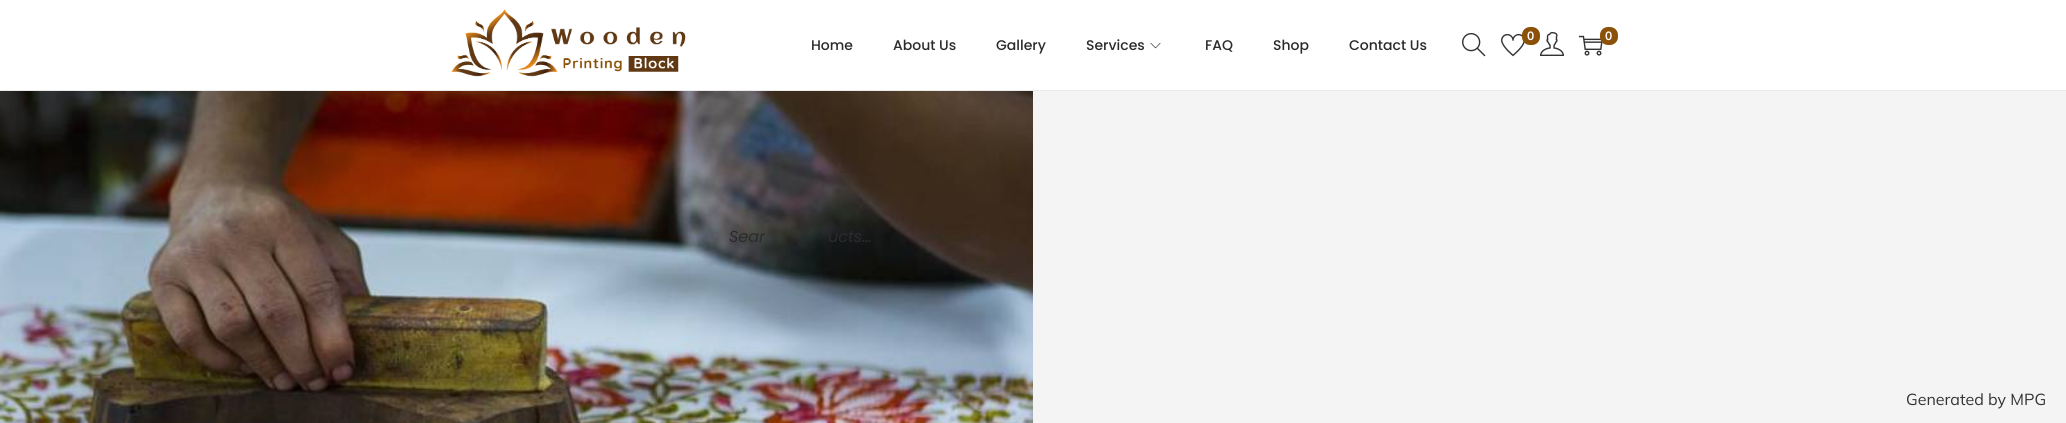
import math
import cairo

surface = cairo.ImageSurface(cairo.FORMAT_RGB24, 2066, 423)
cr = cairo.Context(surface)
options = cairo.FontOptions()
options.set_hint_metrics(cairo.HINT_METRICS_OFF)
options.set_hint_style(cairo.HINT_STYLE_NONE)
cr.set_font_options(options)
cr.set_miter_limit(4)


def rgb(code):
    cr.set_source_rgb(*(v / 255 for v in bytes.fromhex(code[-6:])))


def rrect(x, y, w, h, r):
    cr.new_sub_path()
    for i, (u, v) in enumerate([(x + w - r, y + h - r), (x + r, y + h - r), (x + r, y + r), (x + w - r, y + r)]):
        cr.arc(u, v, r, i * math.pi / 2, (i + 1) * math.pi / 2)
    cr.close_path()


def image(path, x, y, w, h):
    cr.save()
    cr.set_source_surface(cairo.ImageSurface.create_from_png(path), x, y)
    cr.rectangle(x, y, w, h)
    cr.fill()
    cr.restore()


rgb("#ffffff")
cr.paint()
rgb("#eaeaea")
cr.rectangle(0, 90, 2066, 1)
cr.fill()
image("img/1.png", 451, 9, 235, 68)
image("img/2.png", 1462, 33, 24, 24)
image("img/3.png", 1501, 33, 24, 24)
rgb("#8c5108")
rrect(1522, 27, 18, 18, 8)
cr.fill()
image("img/4.png", 1540, 32, 24, 24)
image("img/5.png", 1579, 35, 24, 21)
rrect(1600, 27, 18, 18, 8)
cr.fill()
image("img/6.png", 1150, 42, 11, 7)
rgb("#f4f4f4")
cr.rectangle(1033, 91, 1033, 332)
cr.fill()
image("img/7.png", 0, 91, 1033, 332)
cr.select_font_face("Mulish", cairo.FONT_SLANT_NORMAL, cairo.FONT_WEIGHT_BOLD)
cr.set_font_size(12)
rgb("#ffffff")
cr.move_to(1527, 40)
cr.show_text("0")
cr.move_to(1605, 40)
cr.show_text("0")
cr.select_font_face("Poppins Medium")
cr.set_font_size(14)
rgb("#2b2b2b")
for x, y, s in [
    (811, 50, "Home"),
    (893, 50, "About Us"),
    (996, 50, "Gallery"),
    (1086, 50, "Services"),
    (1205, 50, "FAQ"),
    (1273, 50, "Shop"),
    (1349, 50, "Contact Us"),
]:
    cr.move_to(x, y)
    cr.show_text(s)
cr.select_font_face("Poppins", cairo.FONT_SLANT_ITALIC)
cr.set_font_size(16)
cr.move_to(729, 242)
cr.show_text("Sear")
cr.move_to(828, 242)
cr.show_text("ucts…")
cr.select_font_face("Mulish")
rgb("#333333")
cr.move_to(1906, 405)
cr.show_text("Generated by MPG")
surface.write_to_png("page.png")
